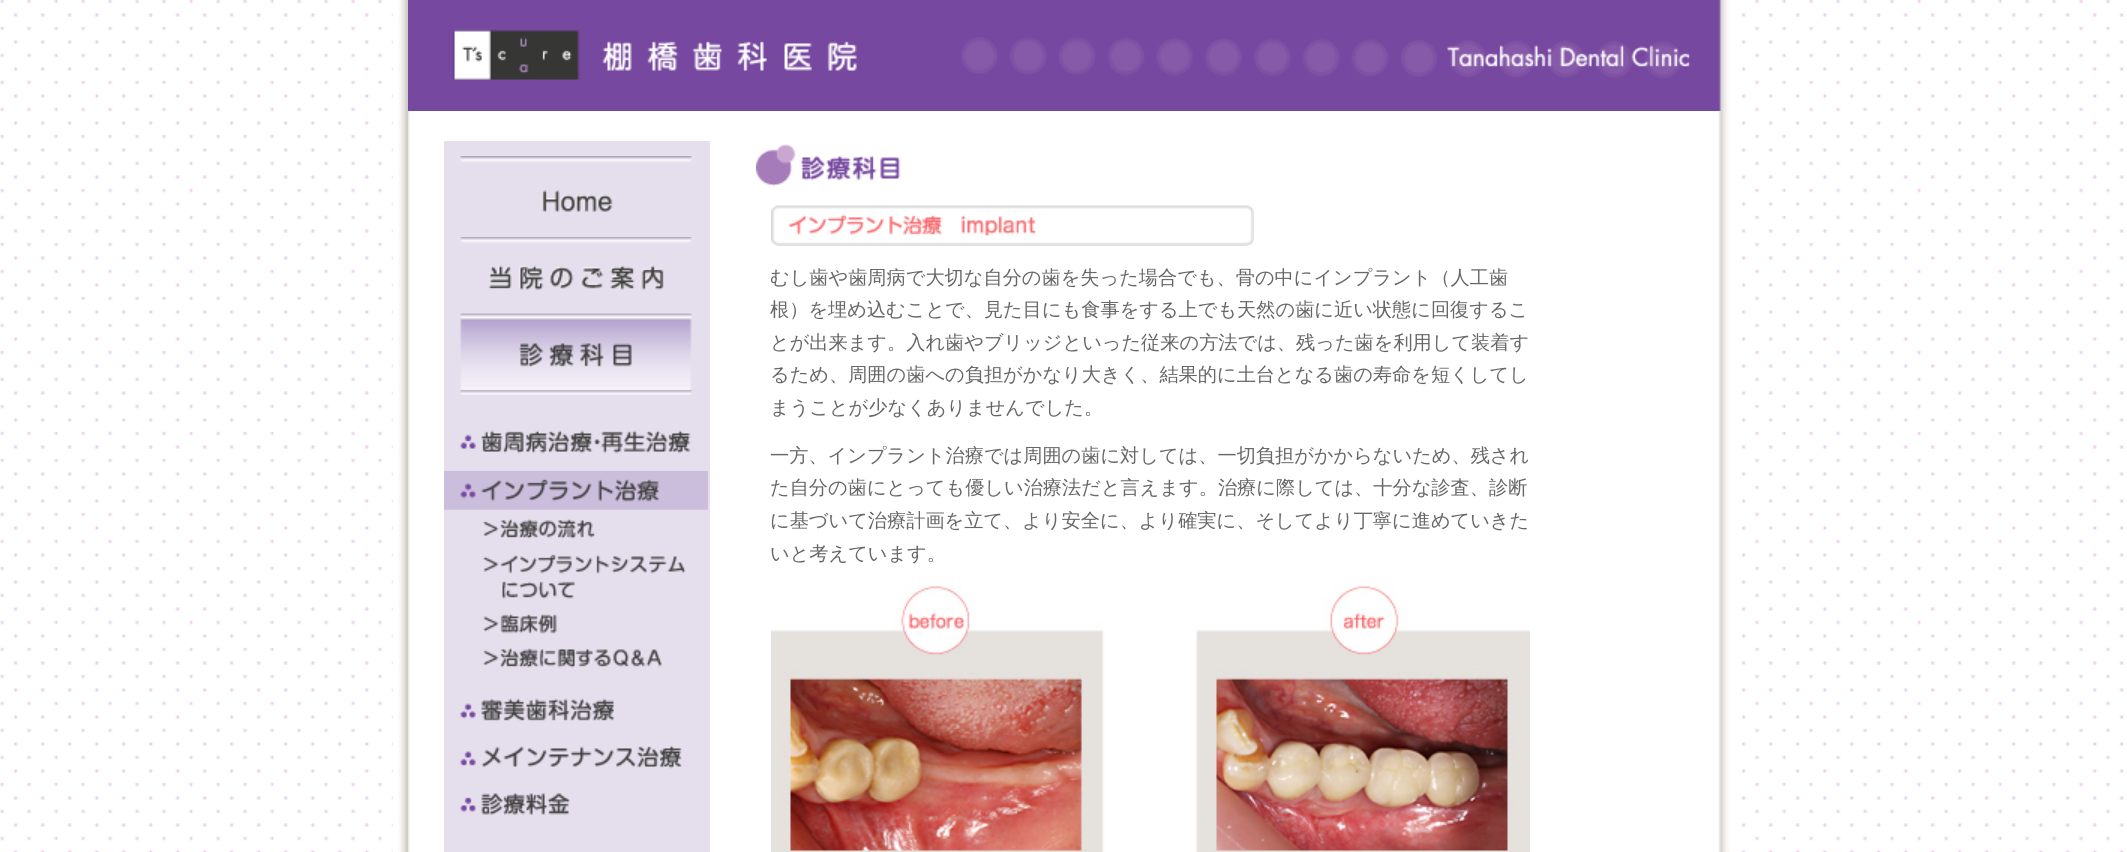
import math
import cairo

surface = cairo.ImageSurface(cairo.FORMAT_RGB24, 2127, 852)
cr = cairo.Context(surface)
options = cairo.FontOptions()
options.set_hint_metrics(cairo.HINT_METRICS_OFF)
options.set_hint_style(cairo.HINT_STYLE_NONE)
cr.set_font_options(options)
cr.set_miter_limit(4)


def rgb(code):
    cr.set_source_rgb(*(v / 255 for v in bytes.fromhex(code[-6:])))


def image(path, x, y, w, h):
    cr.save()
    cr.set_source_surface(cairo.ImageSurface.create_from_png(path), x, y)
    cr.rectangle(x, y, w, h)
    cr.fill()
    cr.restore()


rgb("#ffffff")
cr.paint()
image("img/1.png", 0, 0, 2124, 852)
image("img/2.png", 393, 0, 1340, 852)
image("img/3.png", 873, 0, 848, 111)
image("img/4.png", 408, 0, 465, 111)
rgb("#e5deed")
cr.rectangle(444, 141, 266, 711)
cr.fill()
image("img/5.png", 460, 156, 232, 56)
image("img/6.png", 460, 237, 232, 53)
image("img/7.png", 460, 313, 232, 82)
image("img/8.png", 460, 430, 231, 24)
image("img/9.png", 444, 471, 264, 39)
image("img/10.png", 483, 518, 112, 21)
image("img/11.png", 483, 554, 203, 45)
image("img/12.png", 483, 614, 74, 20)
image("img/13.png", 483, 647, 179, 21)
image("img/14.png", 460, 698, 154, 23)
image("img/15.png", 460, 745, 222, 24)
image("img/16.png", 460, 793, 111, 22)
image("img/17.png", 756, 144, 145, 43)
image("img/18.png", 771, 205, 483, 41)
image("img/19.png", 771, 585, 759, 267)
cr.select_font_face("WenQuanYi Zen Hei Medium")
cr.set_font_size(19.2)
rgb("#666666")
for x, y, s in [
    (770, 284, "むし歯や歯周病で大切な自分の歯を失った場合でも、骨の中にインプラント（人工歯"),
    (770, 316, "根）を埋め込むことで、見た目にも食事をする上でも天然の歯に近い状態に回復するこ"),
    (770, 349, "とが出来ます。入れ歯やブリッジといった従来の方法では、残った歯を利用して装着す"),
    (770, 381, "るため、周囲の歯への負担がかなり大きく、結果的に土台となる歯の寿命を短くしてし"),
    (770, 414, "まうことが少なくありませんでした。"),
    (770, 462, "一方、インプラント治療では周囲の歯に対しては、一切負担がかからないため、残され"),
    (770, 494, "た自分の歯にとっても優しい治療法だと言えます。治療に際しては、十分な診査、診断"),
    (770, 527, "に基づいて治療計画を立て、より安全に、より確実に、そしてより丁寧に進めていきた"),
    (770, 560, "いと考えています。"),
]:
    cr.move_to(x, y)
    cr.show_text(s)
surface.write_to_png("page.png")
